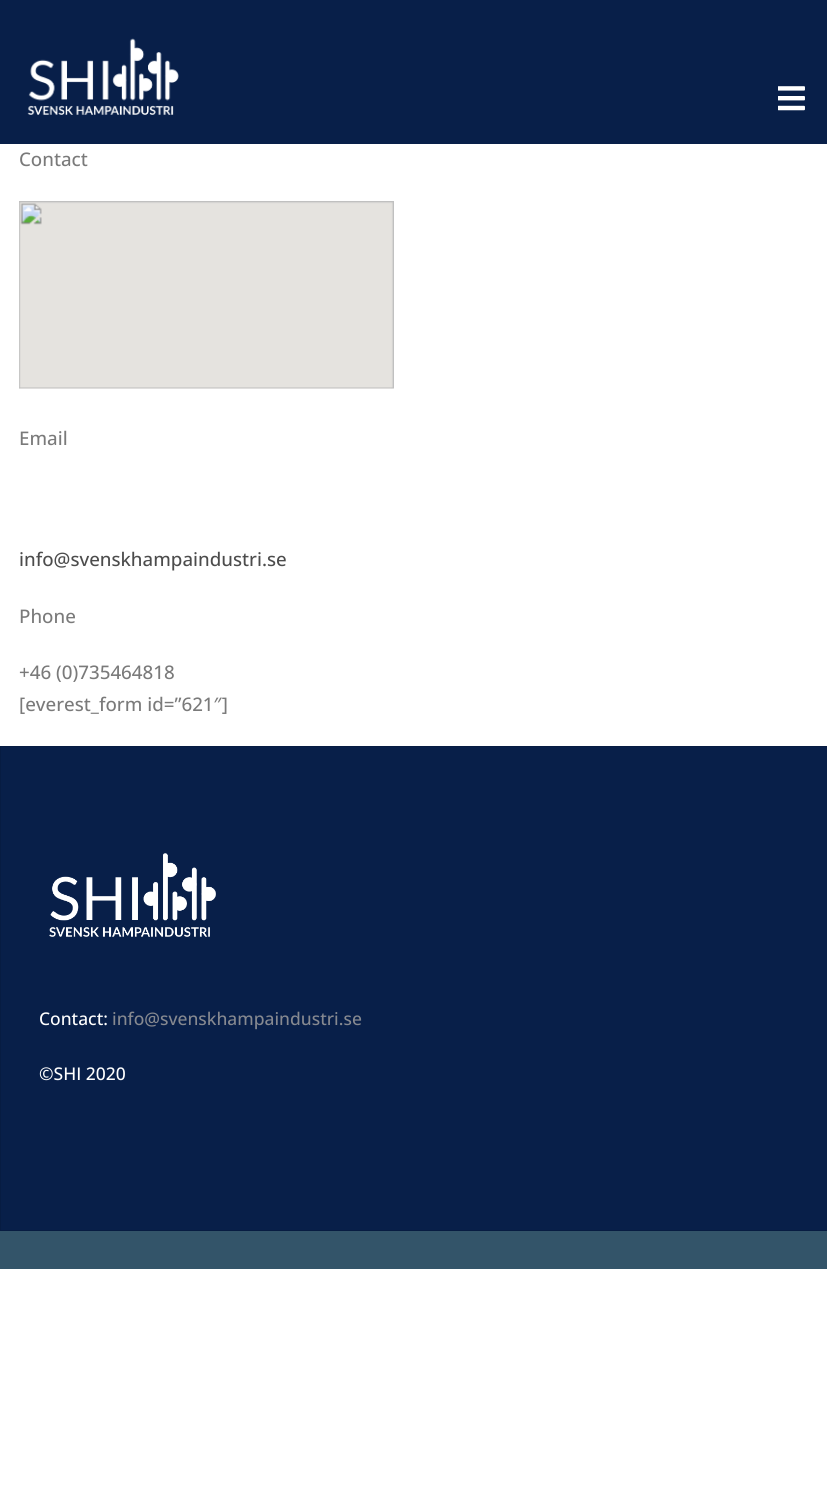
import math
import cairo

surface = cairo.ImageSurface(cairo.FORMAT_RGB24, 827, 1489)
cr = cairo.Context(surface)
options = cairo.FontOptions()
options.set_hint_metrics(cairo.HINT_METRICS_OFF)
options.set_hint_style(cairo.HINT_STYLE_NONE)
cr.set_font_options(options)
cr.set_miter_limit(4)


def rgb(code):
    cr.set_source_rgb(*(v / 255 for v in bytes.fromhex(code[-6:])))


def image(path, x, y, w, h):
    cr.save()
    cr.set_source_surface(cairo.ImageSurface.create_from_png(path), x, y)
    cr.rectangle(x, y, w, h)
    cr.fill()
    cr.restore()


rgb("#ffffff")
cr.paint()
rgb("#081f49")
cr.rectangle(0, 0, 827, 144)
cr.fill()
image("img/1.png", 27, 38, 152, 77)
image("img/2.png", 778, 86, 27, 25)
image("img/3.png", 19, 201, 375, 188)
cr.rectangle(0.5, 746.5, 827, 484)
cr.fill_preserve()
rgb("#071c42")
cr.set_line_width(1)
cr.stroke()
image("img/4.png", 49, 853, 167, 84)
rgb("#335469")
cr.rectangle(0, 1231, 827, 38)
cr.fill()
cr.select_font_face("Open Sans Medium")
cr.set_font_size(18.75)
rgb("#7a7a7a")
cr.move_to(19, 166)
cr.show_text("Contact")
cr.move_to(19, 445)
cr.show_text("Email")
rgb("#4c4c4c")
cr.move_to(19, 566)
cr.show_text("info@svenskhampaindustri.se")
rgb("#7a7a7a")
for x, y, s in [
    (19, 623, "Phone"),
    (19, 679, "+46 (0)735464818"),
    (19, 711, "[everest_form id=”621″]"),
]:
    cr.move_to(x, y)
    cr.show_text(s)
cr.set_font_size(17.5)
rgb("#ffffff")
cr.move_to(39, 1025)
cr.show_text("Contact:")
rgb("#868990")
cr.move_to(112, 1025)
cr.show_text("info@svenskhampaindustri.se")
rgb("#ffffff")
cr.move_to(39, 1080)
cr.show_text("©SHI 2020")
surface.write_to_png("page.png")
